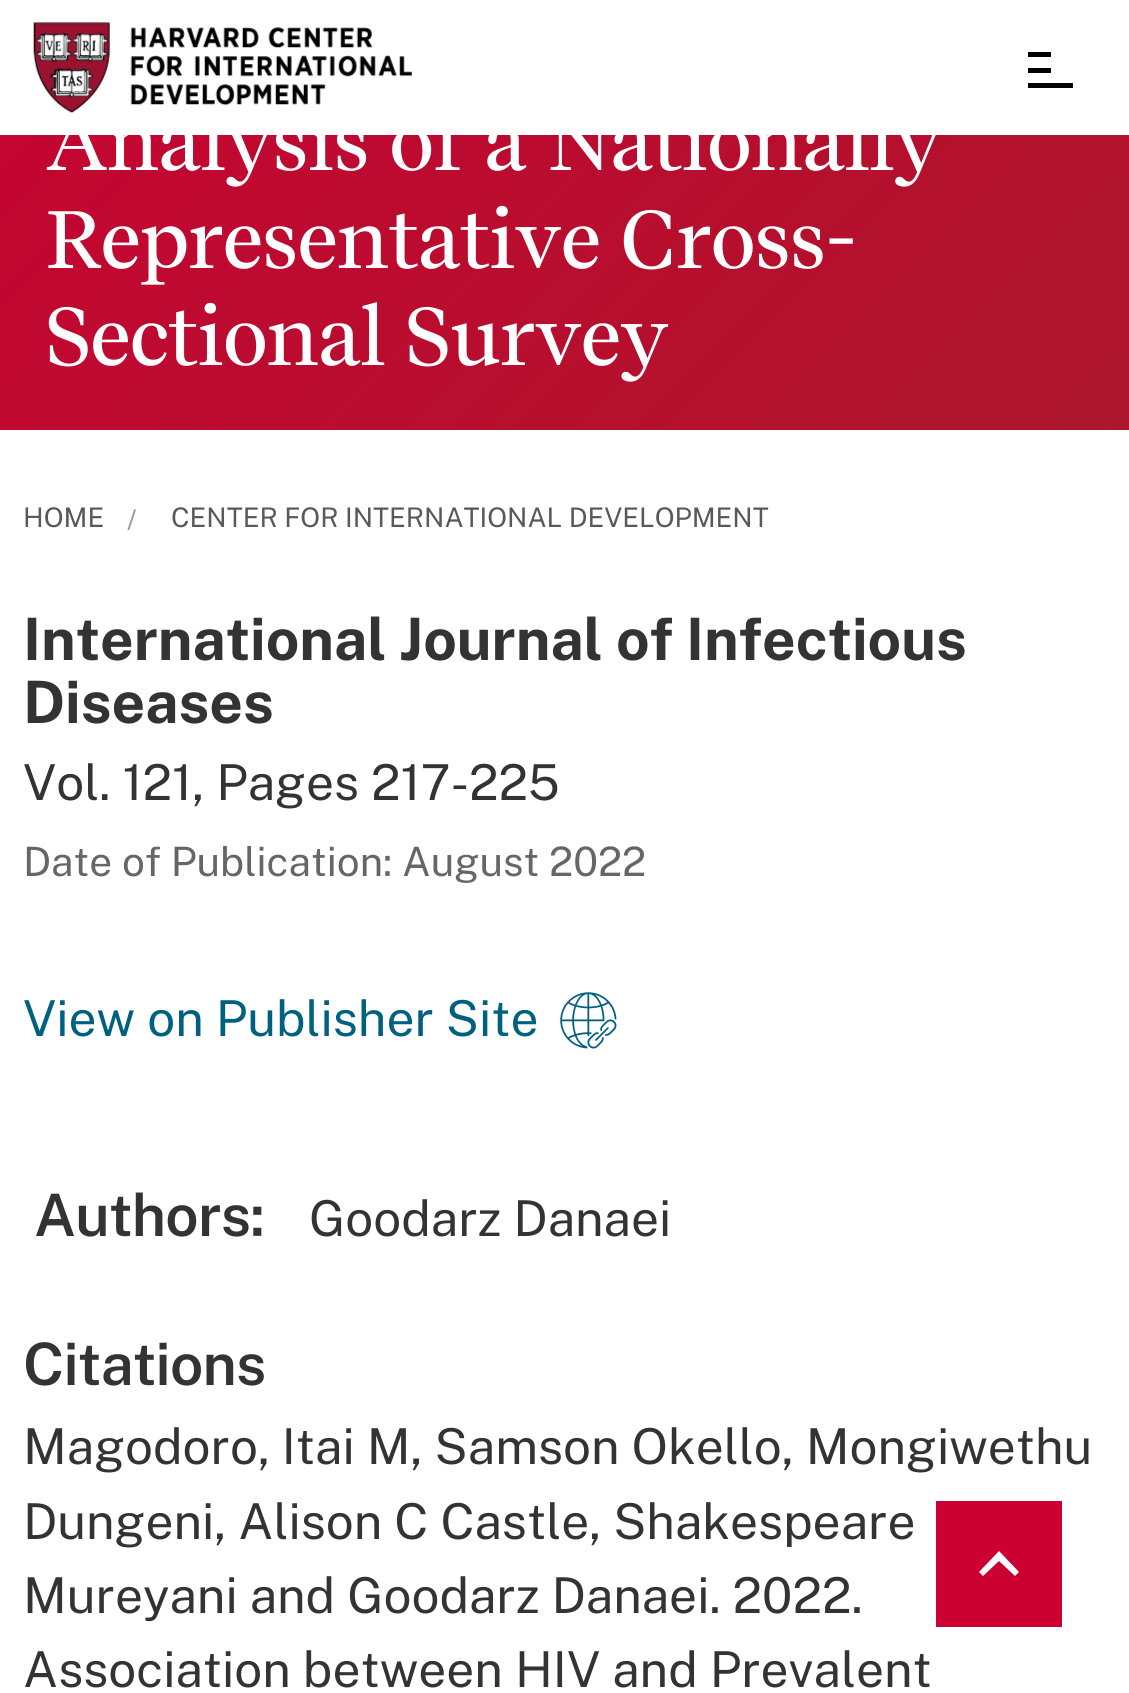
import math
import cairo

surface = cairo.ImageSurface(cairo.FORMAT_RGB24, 1129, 1693)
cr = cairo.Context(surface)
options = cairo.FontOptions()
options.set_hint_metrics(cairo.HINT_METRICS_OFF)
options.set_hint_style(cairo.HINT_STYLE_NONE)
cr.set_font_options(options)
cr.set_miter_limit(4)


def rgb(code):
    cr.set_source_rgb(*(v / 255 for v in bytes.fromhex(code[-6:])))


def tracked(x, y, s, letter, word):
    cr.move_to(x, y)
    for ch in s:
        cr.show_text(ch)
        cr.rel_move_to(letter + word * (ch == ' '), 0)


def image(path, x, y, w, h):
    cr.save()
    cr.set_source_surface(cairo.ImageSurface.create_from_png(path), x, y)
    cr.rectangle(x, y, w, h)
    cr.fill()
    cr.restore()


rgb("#ffffff")
cr.paint()
for x, y, w, h, color in [
    (1028, 52, 23, 5, "#000000"),
    (1028, 68, 23, 5, "#000000"),
    (1028, 83, 45, 5, "#000000"),
]:
    rgb(color)
    cr.rectangle(x, y, w, h)
    cr.fill()
gradient = cairo.LinearGradient(90, -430, 1040, 520)
gradient.add_color_stop_rgba(0, 0.8, 0, 0.2, 1)
gradient.add_color_stop_rgba(1, 0.675, 0.086, 0.173, 1)
cr.set_source(gradient)
cr.rectangle(0, 135, 1129, 295)
cr.fill()
image("img/2.png", 560, 992, 57, 57)
rgb("#cc0033")
cr.rectangle(936, 1501, 126, 126)
cr.fill()
rgb("#ffffff")
cr.new_path()
cr.move_to(999, 1561)
cr.line_to(983, 1576)
cr.line_to(979, 1572)
cr.line_to(999, 1551)
cr.line_to(1019, 1572)
cr.line_to(1015, 1576)
cr.close_path()
cr.fill()
cr.select_font_face("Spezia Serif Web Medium")
cr.set_font_size(81)
tracked(45, 170, "Analysis of a Nationally", -2.25, 0)
image("img/1.png", 33, 22, 379, 91)
tracked(45, 268, "Representative Cross-", -2.25, 0)
tracked(45, 365, "Sectional Survey", -2.25, 0)
cr.select_font_face("Public Sans Thin")
cr.set_font_size(27)
rgb("#595959")
cr.move_to(23, 527)
cr.show_text("HOME")
rgb("#999999")
cr.move_to(127, 529)
cr.show_text("/")
rgb("#595959")
cr.move_to(171, 527)
cr.show_text("CENTER FOR INTERNATIONAL DEVELOPMENT")
cr.select_font_face("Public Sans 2 Thin")
cr.set_font_size(58.5)
rgb("#333333")
cr.move_to(23, 660)
cr.show_text("International Journal of Infectious")
cr.move_to(23, 723)
cr.show_text("Diseases")
cr.select_font_face("Public Sans Thin")
cr.set_font_size(49.5)
cr.move_to(23, 800)
cr.show_text("Vol. 121, Pages 217-225")
cr.set_font_size(40.5)
rgb("#666666")
cr.move_to(23, 876)
cr.show_text("Date of Publication: August 2022")
cr.set_font_size(49.5)
rgb("#006080")
cr.move_to(23, 1036)
cr.show_text("View on Publisher Site")
cr.select_font_face("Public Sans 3 Thin")
cr.set_font_size(58.5)
rgb("#333333")
tracked(34, 1236, "Authors:", -0.75, 0)
cr.select_font_face("Public Sans Thin")
cr.set_font_size(49.5)
cr.move_to(309, 1236)
cr.show_text("Goodarz Danaei")
cr.select_font_face("Public Sans 3 Thin")
cr.set_font_size(58.5)
tracked(23, 1385, "Citations", -0.75, 0)
cr.select_font_face("Public Sans Thin")
cr.set_font_size(49.5)
for x, y, s in [
    (23, 1464, "Magodoro, Itai M, Samson Okello, Mongiwethu"),
    (23, 1539, "Dungeni, Alison C Castle, Shakespeare"),
    (23, 1613, "Mureyani and Goodarz Danaei. 2022."),
    (23, 1687, "Association between HIV and Prevalent"),
]:
    cr.move_to(x, y)
    cr.show_text(s)
surface.write_to_png("page.png")
